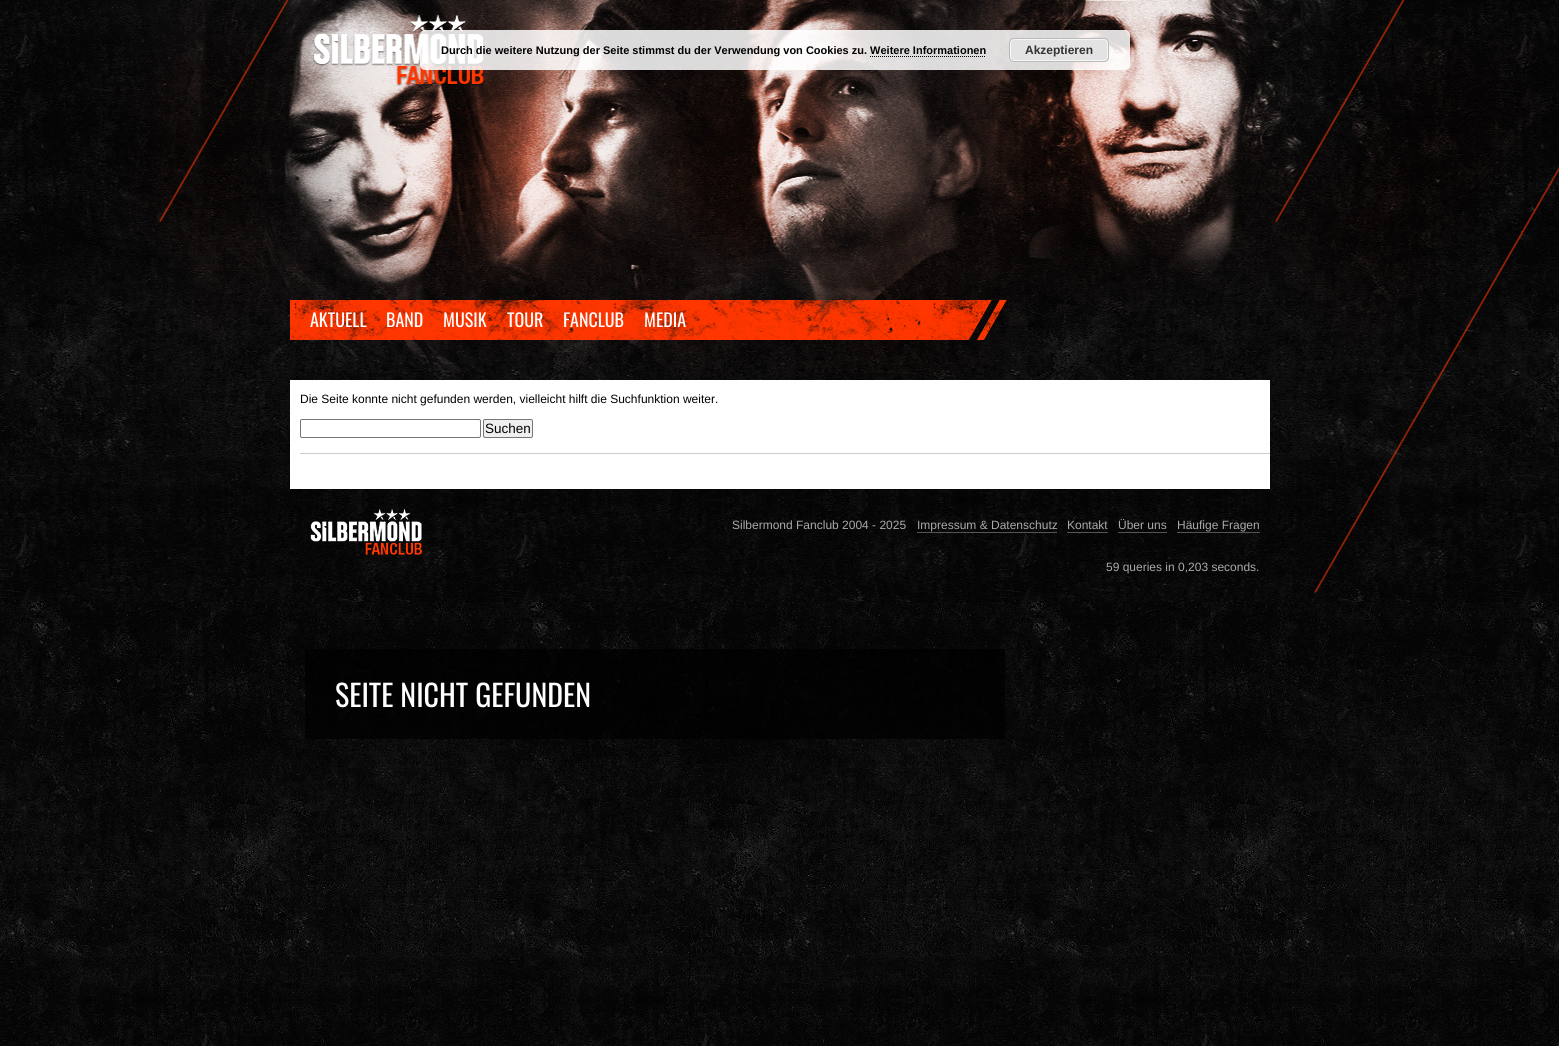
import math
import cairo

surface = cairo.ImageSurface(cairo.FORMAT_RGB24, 1559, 1046)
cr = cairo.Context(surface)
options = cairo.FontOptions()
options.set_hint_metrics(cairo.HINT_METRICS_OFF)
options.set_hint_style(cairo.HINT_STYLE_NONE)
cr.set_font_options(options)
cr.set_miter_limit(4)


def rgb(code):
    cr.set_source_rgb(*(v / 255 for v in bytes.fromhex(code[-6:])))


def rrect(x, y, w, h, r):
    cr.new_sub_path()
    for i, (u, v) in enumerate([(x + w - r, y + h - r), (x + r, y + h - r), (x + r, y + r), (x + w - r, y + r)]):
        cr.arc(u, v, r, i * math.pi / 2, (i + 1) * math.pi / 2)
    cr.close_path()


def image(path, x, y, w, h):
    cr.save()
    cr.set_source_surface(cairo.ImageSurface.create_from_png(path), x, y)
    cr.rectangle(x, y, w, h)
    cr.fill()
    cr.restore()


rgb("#ffffff")
cr.paint()
image("img/1.png", 0, 602, 1559, 444)
image("img/2.png", 0, 0, 1559, 602)
image("img/3.png", 313, 15, 171, 71)
cr.set_source_rgba(1, 1, 1, 0.85)
rrect(420, 30, 710, 40, 5)
cr.fill()
rgb("#e3e3e3")
rrect(1009, 38, 100, 24, 5)
cr.fill()
rrect(1010.5, 39.5, 97, 21, 3.5)
rgb("#f6f6f6")
cr.set_line_width(1)
cr.stroke()
rrect(1009.5, 38.5, 99, 23, 4.5)
rgb("#bbbbbb")
cr.stroke()
cr.new_path()
cr.move_to(870, 56.5)
cr.line_to(986, 56.5)
rgb("#000000")
cr.set_dash([1, 1])
cr.stroke()
image("img/4.png", 290, 300, 717, 40)
rgb("#ffffff")
cr.rectangle(290, 380, 980, 109)
cr.fill()
rgb("#cccccc")
cr.rectangle(300, 453, 970, 1)
cr.fill()
rrect(300.5, 419.5, 180, 18, 1.5)
rgb("#767676")
cr.set_dash([])
cr.stroke()
rgb("#efefef")
rrect(483.5, 419.5, 49, 18, 1.5)
cr.fill_preserve()
rgb("#767676")
cr.stroke()
cr.set_source_rgba(0, 0, 0, 0.75)
cr.rectangle(305, 649, 700, 90)
cr.fill()
image("img/5.png", 310, 509, 113, 46)
for x, y, w, h, color in [
    (917, 532, 140, 1, "#555555"),
    (1067, 532, 41, 1, "#555555"),
    (1118, 532, 49, 1, "#555555"),
    (1177, 532, 83, 1, "#555555"),
]:
    rgb(color)
    cr.rectangle(x, y, w, h)
    cr.fill()
cr.select_font_face("Liberation Sans", cairo.FONT_SLANT_NORMAL, cairo.FONT_WEIGHT_BOLD)
cr.set_font_size(11)
rgb("#000000")
cr.move_to(441, 54)
cr.show_text("Durch die weitere Nutzung der Seite stimmst du der Verwendung von Cookies zu. Weitere Informationen")
cr.set_font_size(12)
rgb("#333333")
cr.move_to(1025, 54)
cr.show_text("Akzeptieren")
cr.select_font_face("Oswald")
cr.set_font_size(18)
rgb("#ffffff")
for x, y, s in [
    (310, 327, "AKTUELL"),
    (386, 327, "BAND"),
    (443, 327, "MUSIK"),
    (507, 327, "TOUR"),
    (563, 327, "FANCLUB"),
    (644, 327, "MEDIA"),
]:
    cr.move_to(x, y)
    cr.show_text(s)
cr.select_font_face("Arimo")
cr.set_font_size(12)
rgb("#000000")
cr.move_to(300, 403)
cr.show_text("Die Seite konnte nicht gefunden werden, vielleicht hilft die Suchfunktion weiter.")
cr.select_font_face("Liberation Sans")
cr.set_font_size(13.5)
cr.move_to(485, 433)
cr.show_text("Suchen")
cr.select_font_face("Oswald")
cr.set_font_size(30)
rgb("#ffffff")
cr.move_to(335, 707)
cr.show_text("SEITE NICHT GEFUNDEN")
cr.select_font_face("Arimo")
cr.set_font_size(12)
rgb("#aaaaaa")
for x, y, s in [
    (732, 529, "Silbermond Fanclub 2004 - 2025"),
    (917, 529, "Impressum & Datenschutz"),
    (1067, 529, "Kontakt"),
    (1118, 529, "Über uns"),
    (1177, 529, "Häufige Fragen"),
    (1106, 571, "59 queries in 0,203 seconds."),
]:
    cr.move_to(x, y)
    cr.show_text(s)
surface.write_to_png("page.png")
